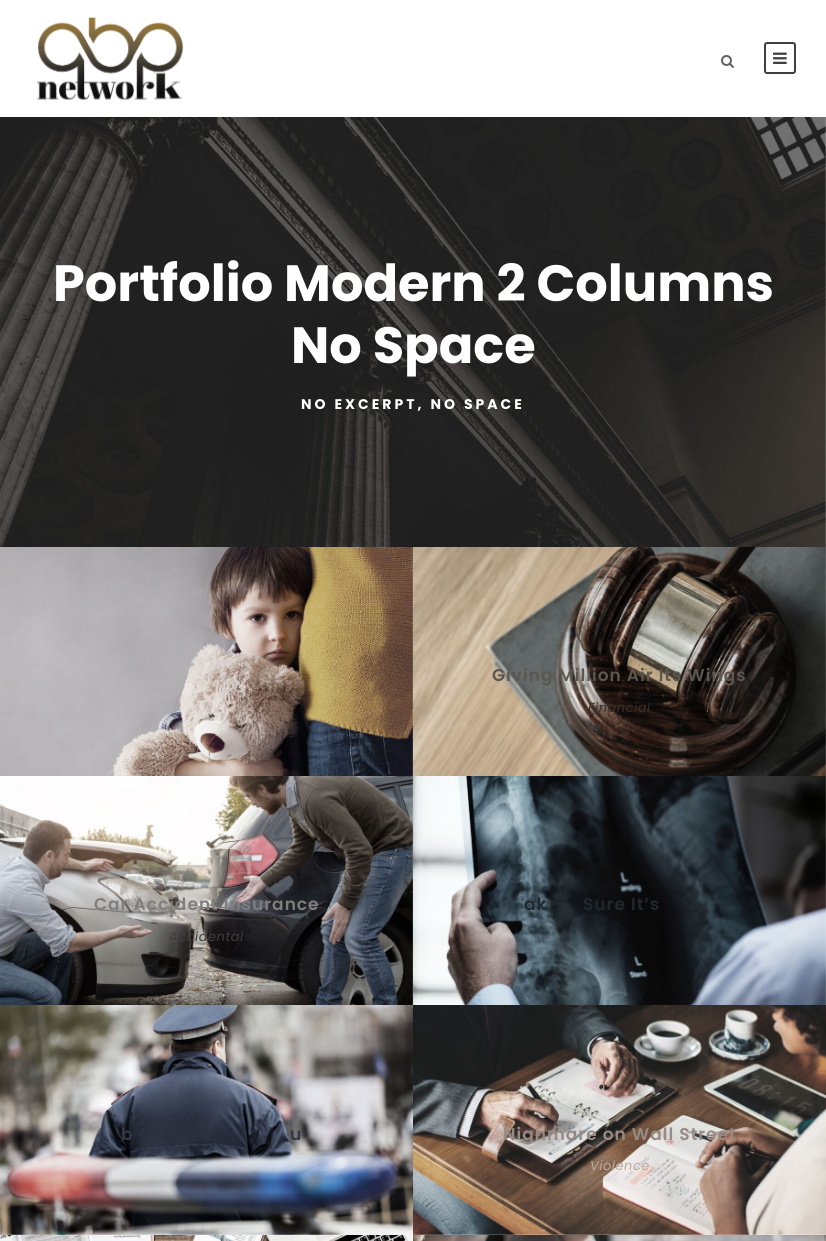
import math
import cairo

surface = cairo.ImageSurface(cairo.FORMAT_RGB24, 826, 1241)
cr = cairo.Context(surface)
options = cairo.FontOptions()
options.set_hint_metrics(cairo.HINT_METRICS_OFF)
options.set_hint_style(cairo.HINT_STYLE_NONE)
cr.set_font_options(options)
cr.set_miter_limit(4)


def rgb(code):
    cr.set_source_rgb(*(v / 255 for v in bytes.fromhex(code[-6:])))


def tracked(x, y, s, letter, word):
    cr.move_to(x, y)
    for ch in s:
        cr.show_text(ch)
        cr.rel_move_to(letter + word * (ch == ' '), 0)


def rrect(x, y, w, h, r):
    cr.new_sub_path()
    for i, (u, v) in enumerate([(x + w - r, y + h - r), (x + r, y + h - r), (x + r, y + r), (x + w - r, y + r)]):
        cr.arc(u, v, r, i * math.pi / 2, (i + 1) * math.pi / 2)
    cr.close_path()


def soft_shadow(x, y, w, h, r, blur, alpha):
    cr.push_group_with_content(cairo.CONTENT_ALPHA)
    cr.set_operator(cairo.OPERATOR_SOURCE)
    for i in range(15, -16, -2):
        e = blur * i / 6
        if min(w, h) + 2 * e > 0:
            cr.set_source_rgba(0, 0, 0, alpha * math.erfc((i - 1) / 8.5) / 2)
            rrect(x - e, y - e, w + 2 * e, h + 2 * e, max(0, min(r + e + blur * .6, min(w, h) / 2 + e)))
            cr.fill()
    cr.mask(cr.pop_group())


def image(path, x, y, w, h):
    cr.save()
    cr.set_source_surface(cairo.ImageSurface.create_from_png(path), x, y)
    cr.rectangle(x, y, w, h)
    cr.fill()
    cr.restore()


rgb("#ffffff")
cr.paint()
cr.save()
cr.rectangle(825, 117, 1, 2)
cr.clip()
rgb("#000000")
soft_shadow(0, 1, 826, 117, 0, 1, 0.1)
cr.restore()
image("img/1.png", 37, 17, 147, 83)
image("img/2.png", 721, 55, 13, 13)
rrect(765, 43, 30, 30, 2)
rgb("#3f3f3f")
cr.stroke()
image("img/3.png", 773, 52, 14, 12)
image("img/4.png", 0, 117, 826, 430)
image("img/5.png", 0, 547, 413, 229)
image("img/6.png", 413, 547, 413, 229)
image("img/7.png", 0, 776, 413, 229)
image("img/8.png", 413, 776, 413, 229)
image("img/9.png", 0, 1005, 413, 230)
image("img/10.png", 413, 1005, 413, 230)
image("img/11.png", 0, 1235, 413, 6)
image("img/12.png", 413, 1235, 413, 6)
cr.select_font_face("Poppins", cairo.FONT_SLANT_NORMAL, cairo.FONT_WEIGHT_BOLD)
cr.set_font_size(51)
rgb("#ffffff")
cr.move_to(53, 301)
cr.show_text("Portfolio Modern 2 Columns")
cr.move_to(291, 363)
cr.show_text("No Space")
cr.set_font_size(14)
tracked(301, 409, "NO EXCERPT, NO SPACE", 3, 0)
cr.select_font_face("Poppins SemiBold")
cr.set_font_size(17)
rgb("#5c5650")
tracked(492, 681, "Giving Million Air Its Wings", 1, 0)
cr.select_font_face("Poppins", cairo.FONT_SLANT_ITALIC)
cr.set_font_size(13)
rgb("#3b2e29")
tracked(588, 712, "Financial", 0.5, 0)
cr.select_font_face("Poppins SemiBold")
cr.set_font_size(17)
rgb("#7f7e7e")
tracked(94, 910, "Car Accident Insurance", 1, 0)
cr.select_font_face("Poppins", cairo.FONT_SLANT_ITALIC)
cr.set_font_size(13)
rgb("#3e3b3a")
tracked(169, 941, "Accidental", 0.5, 0)
cr.select_font_face("Poppins SemiBold")
cr.set_font_size(17)
rgb("#20282e")
tracked(524, 910, "ak", 1, 0)
tracked(583, 910, "Sure It’s", 1, 0)
rgb("#333844")
tracked(121, 1140, "b", 1, 0)
tracked(290, 1140, "u", 1, 0)
rgb("#968a84")
tracked(503, 1140, "Nighmare on Wall Street", 1, 0)
cr.select_font_face("Poppins", cairo.FONT_SLANT_ITALIC)
cr.set_font_size(13)
rgb("#bba99e")
tracked(590, 1170, "Violence", 0.5, 0)
surface.write_to_png("page.png")
